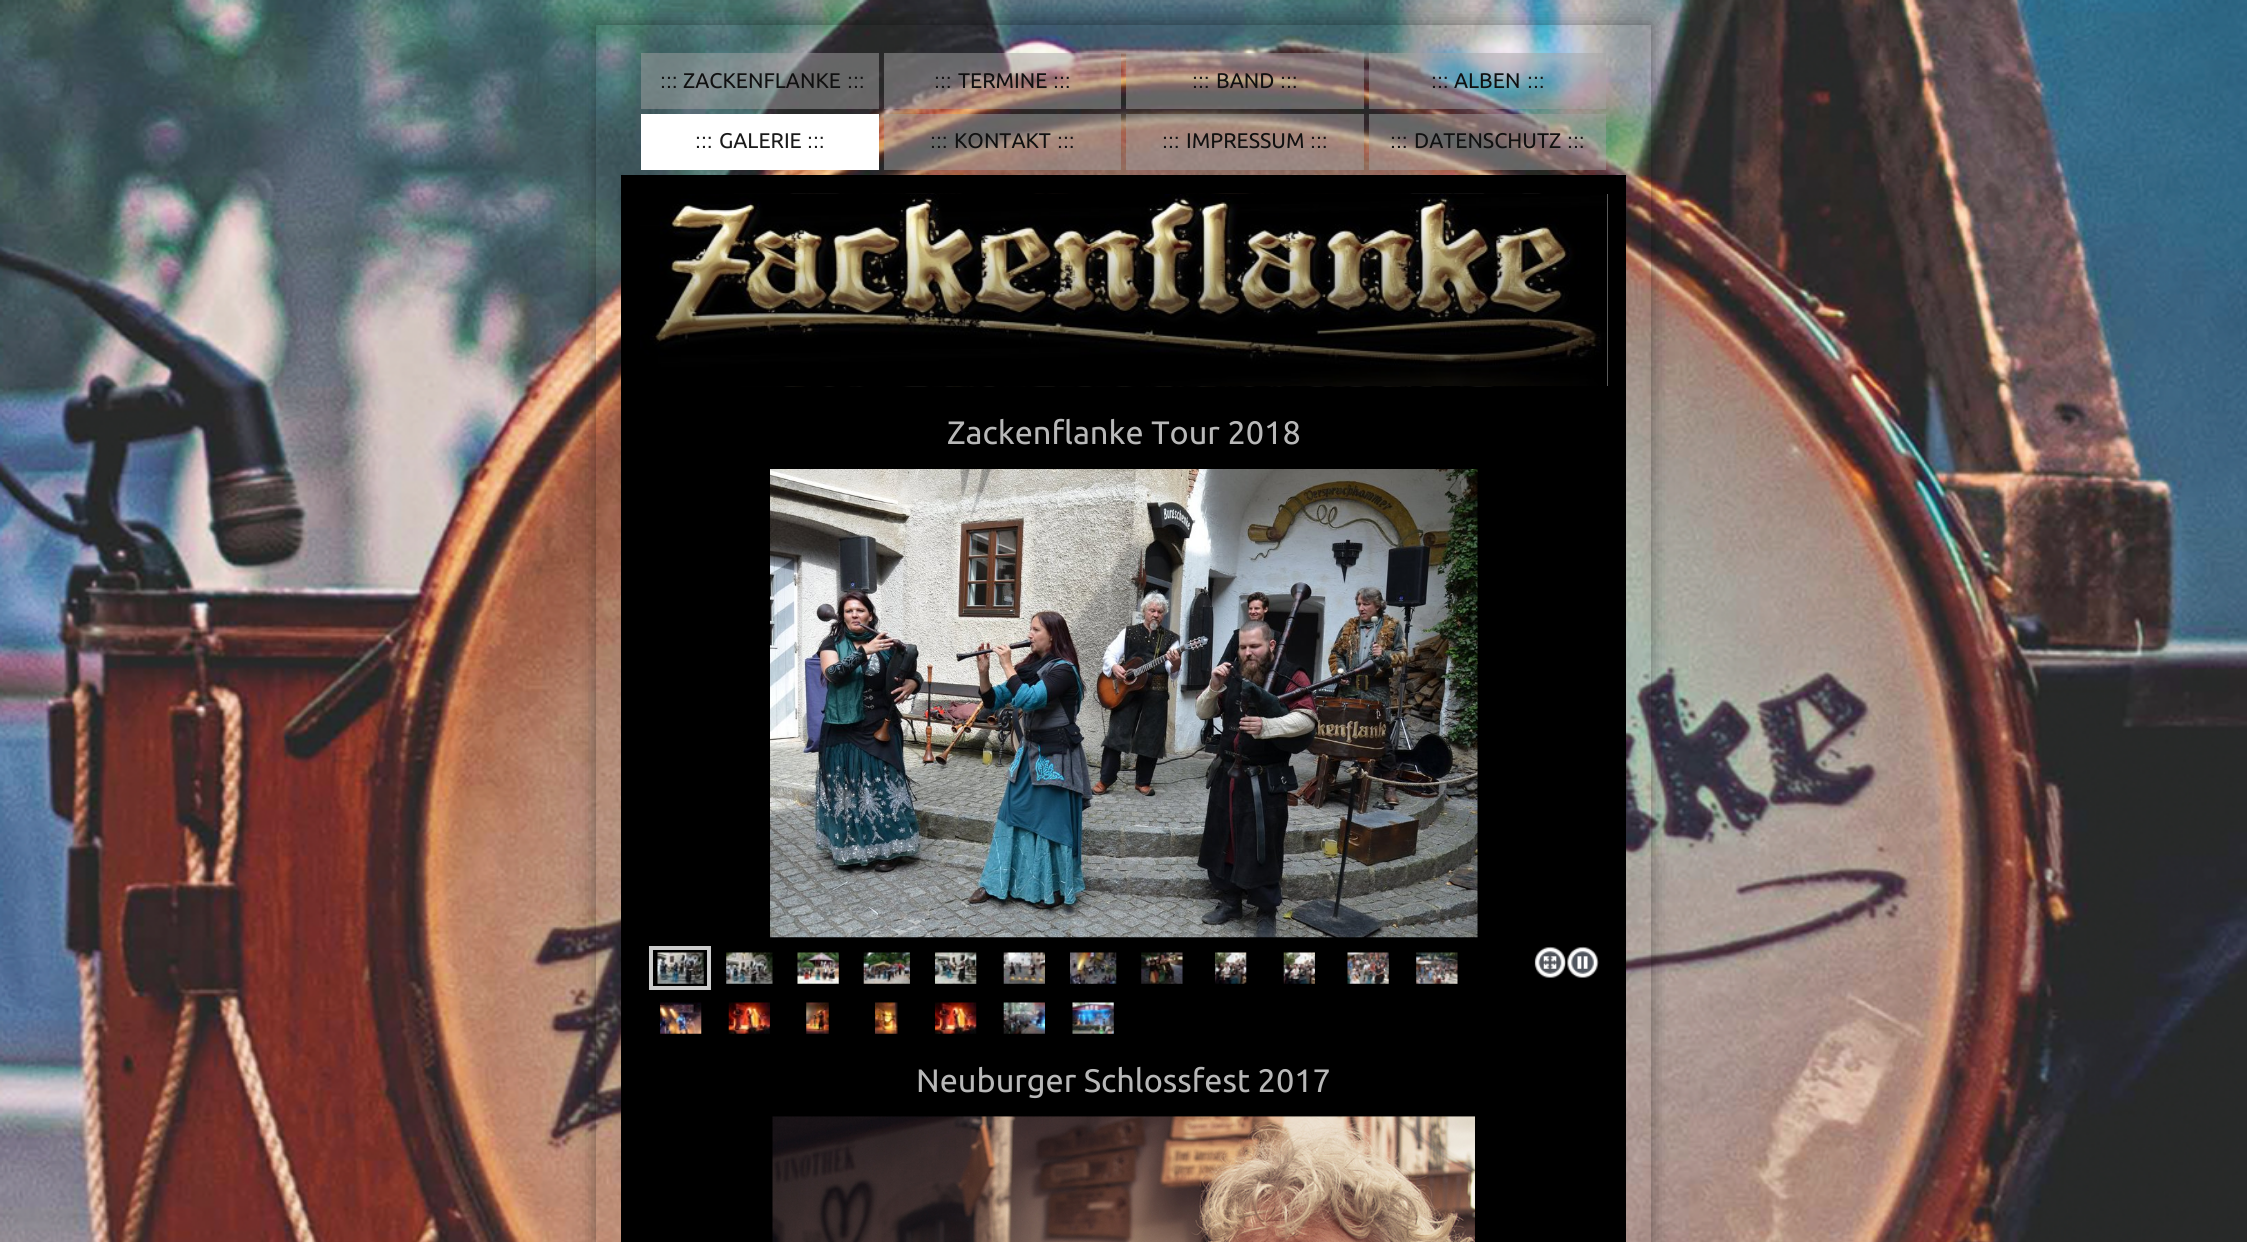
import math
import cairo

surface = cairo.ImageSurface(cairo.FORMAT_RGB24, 2247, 1242)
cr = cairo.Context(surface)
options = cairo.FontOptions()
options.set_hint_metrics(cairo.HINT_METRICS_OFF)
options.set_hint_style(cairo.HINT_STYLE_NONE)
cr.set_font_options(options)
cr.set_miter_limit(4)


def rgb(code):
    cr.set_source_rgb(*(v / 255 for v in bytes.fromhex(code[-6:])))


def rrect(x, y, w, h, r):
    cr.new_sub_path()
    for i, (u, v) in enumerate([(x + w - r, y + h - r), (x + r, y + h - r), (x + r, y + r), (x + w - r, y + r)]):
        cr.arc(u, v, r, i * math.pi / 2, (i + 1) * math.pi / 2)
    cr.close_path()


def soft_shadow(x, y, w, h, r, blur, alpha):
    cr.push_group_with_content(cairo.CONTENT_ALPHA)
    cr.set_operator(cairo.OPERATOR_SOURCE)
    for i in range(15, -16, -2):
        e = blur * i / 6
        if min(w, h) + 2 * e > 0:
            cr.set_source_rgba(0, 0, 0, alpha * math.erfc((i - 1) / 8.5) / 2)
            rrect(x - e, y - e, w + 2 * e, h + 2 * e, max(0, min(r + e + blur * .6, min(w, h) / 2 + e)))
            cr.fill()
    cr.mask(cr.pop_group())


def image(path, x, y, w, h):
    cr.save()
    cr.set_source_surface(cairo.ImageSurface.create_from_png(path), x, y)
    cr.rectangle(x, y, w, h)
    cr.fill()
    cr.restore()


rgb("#ffffff")
cr.paint()
image("img/1.png", 0, 0, 2247, 1242)
cr.save()
cr.set_fill_rule(cairo.FILL_RULE_EVEN_ODD)
cr.new_path()
cr.move_to(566, 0)
cr.line_to(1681, 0)
cr.line_to(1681, 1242)
cr.line_to(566, 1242)
cr.close_path()
cr.move_to(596, 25)
cr.line_to(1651, 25)
cr.line_to(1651, 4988)
cr.line_to(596, 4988)
cr.close_path()
cr.clip()
rgb("#000000")
soft_shadow(596, 25, 1055, 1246, 0, 9.5, 0.4)
cr.restore()
cr.set_source_rgba(0.643, 0.643, 0.643, 0.5)
cr.rectangle(641, 53, 238, 56)
cr.fill()
cr.rectangle(884, 53, 237, 56)
cr.fill()
cr.rectangle(1126, 53, 238, 56)
cr.fill()
cr.rectangle(1369, 53, 237, 56)
cr.fill()
rgb("#ffffff")
cr.rectangle(641, 114, 238, 56)
cr.fill()
cr.set_source_rgba(0.643, 0.643, 0.643, 0.5)
cr.rectangle(884, 114, 237, 56)
cr.fill()
cr.rectangle(1126, 114, 238, 56)
cr.fill()
cr.rectangle(1369, 114, 237, 56)
cr.fill()
rgb("#000000")
cr.rectangle(621, 175, 1005, 1067)
cr.fill()
rgb("#a0a0a0")
cr.rectangle(1607, 194, 1, 192)
cr.fill()
image("img/2.png", 640, 193, 968, 194)
image("img/3.png", 640, 194, 968, 192)
image("img/4.png", 770, 469, 708, 469)
cr.rectangle(651, 948, 58, 40)
rgb("#cccccc")
cr.set_line_width(4)
cr.stroke()
image("img/5.png", 657, 952, 47, 32)
image("img/6.png", 726, 952, 47, 32)
image("img/7.png", 797, 952, 42, 32)
image("img/8.png", 863, 952, 47, 32)
image("img/9.png", 935, 952, 42, 32)
image("img/10.png", 1003, 952, 42, 32)
image("img/11.png", 1070, 952, 47, 32)
image("img/12.png", 1141, 952, 42, 32)
image("img/13.png", 1215, 952, 32, 32)
image("img/14.png", 1283, 952, 32, 32)
image("img/15.png", 1347, 952, 42, 32)
image("img/16.png", 1416, 952, 42, 32)
image("img/17.png", 1534, 946, 33, 32)
image("img/18.png", 1567, 946, 32, 32)
image("img/19.png", 660, 1002, 42, 32)
image("img/20.png", 728, 1002, 42, 32)
image("img/21.png", 806, 1002, 23, 32)
image("img/22.png", 875, 1002, 23, 32)
image("img/23.png", 935, 1002, 42, 32)
image("img/24.png", 1003, 1002, 42, 32)
image("img/25.png", 1072, 1002, 42, 32)
image("img/26.png", 772, 1116, 703, 126)
cr.select_font_face("Liberation Sans")
cr.set_font_size(21.25)
rgb("#101010")
cr.move_to(660, 88)
cr.show_text(":::")
cr.select_font_face("Ubuntu")
cr.move_to(683, 88)
cr.show_text("ZACKENFLANKE")
cr.select_font_face("Liberation Sans")
cr.move_to(847, 88)
cr.show_text(":::")
cr.move_to(934, 88)
cr.show_text(":::")
cr.select_font_face("Ubuntu")
cr.move_to(958, 88)
cr.show_text("TERMINE")
cr.select_font_face("Liberation Sans")
cr.move_to(1053, 88)
cr.show_text(":::")
cr.move_to(1192, 88)
cr.show_text(":::")
cr.select_font_face("Ubuntu")
cr.move_to(1216, 88)
cr.show_text("BAND")
cr.select_font_face("Liberation Sans")
cr.move_to(1280, 88)
cr.show_text(":::")
cr.move_to(1431, 88)
cr.show_text(":::")
cr.select_font_face("Ubuntu")
cr.move_to(1454, 88)
cr.show_text("ALBEN")
cr.select_font_face("Liberation Sans")
cr.move_to(1527, 88)
cr.show_text(":::")
rgb("#1a1a1a")
cr.move_to(695, 148)
cr.show_text(":::")
cr.select_font_face("Ubuntu")
cr.move_to(719, 148)
cr.show_text("GALERIE")
cr.select_font_face("Liberation Sans")
cr.move_to(807, 148)
cr.show_text(":::")
rgb("#101010")
cr.move_to(930, 148)
cr.show_text(":::")
cr.select_font_face("Ubuntu")
cr.move_to(954, 148)
cr.show_text("KONTAKT")
cr.select_font_face("Liberation Sans")
cr.move_to(1057, 148)
cr.show_text(":::")
cr.move_to(1162, 148)
cr.show_text(":::")
cr.select_font_face("Ubuntu")
cr.move_to(1186, 148)
cr.show_text("IMPRESSUM")
cr.select_font_face("Liberation Sans")
cr.move_to(1310, 148)
cr.show_text(":::")
cr.move_to(1390, 148)
cr.show_text(":::")
cr.select_font_face("Ubuntu")
cr.move_to(1414, 148)
cr.show_text("DATENSCHUTZ")
cr.select_font_face("Liberation Sans")
cr.move_to(1567, 148)
cr.show_text(":::")
cr.select_font_face("Ubuntu")
cr.set_font_size(32.5)
rgb("#b8b8b8")
cr.move_to(947, 444)
cr.show_text("Zackenflanke Tour 2018")
cr.move_to(916, 1092)
cr.show_text("Neuburger Schlossfest 2017")
surface.write_to_png("page.png")
